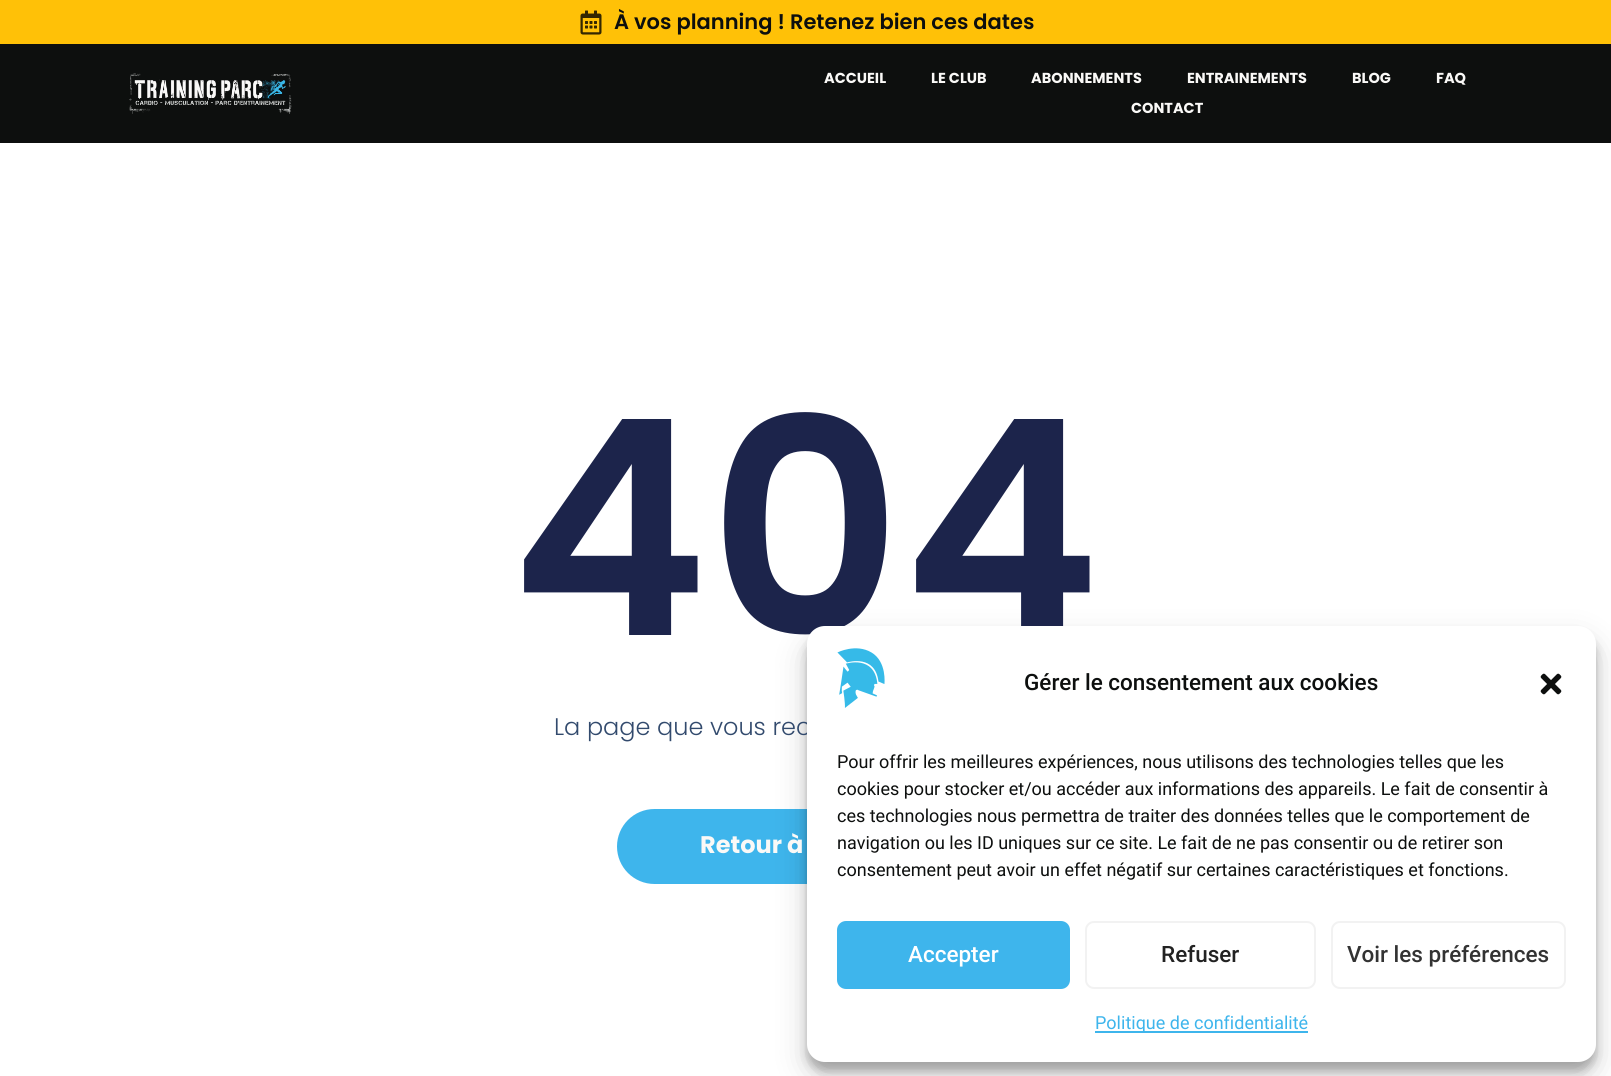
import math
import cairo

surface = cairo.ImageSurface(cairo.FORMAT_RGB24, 1611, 1076)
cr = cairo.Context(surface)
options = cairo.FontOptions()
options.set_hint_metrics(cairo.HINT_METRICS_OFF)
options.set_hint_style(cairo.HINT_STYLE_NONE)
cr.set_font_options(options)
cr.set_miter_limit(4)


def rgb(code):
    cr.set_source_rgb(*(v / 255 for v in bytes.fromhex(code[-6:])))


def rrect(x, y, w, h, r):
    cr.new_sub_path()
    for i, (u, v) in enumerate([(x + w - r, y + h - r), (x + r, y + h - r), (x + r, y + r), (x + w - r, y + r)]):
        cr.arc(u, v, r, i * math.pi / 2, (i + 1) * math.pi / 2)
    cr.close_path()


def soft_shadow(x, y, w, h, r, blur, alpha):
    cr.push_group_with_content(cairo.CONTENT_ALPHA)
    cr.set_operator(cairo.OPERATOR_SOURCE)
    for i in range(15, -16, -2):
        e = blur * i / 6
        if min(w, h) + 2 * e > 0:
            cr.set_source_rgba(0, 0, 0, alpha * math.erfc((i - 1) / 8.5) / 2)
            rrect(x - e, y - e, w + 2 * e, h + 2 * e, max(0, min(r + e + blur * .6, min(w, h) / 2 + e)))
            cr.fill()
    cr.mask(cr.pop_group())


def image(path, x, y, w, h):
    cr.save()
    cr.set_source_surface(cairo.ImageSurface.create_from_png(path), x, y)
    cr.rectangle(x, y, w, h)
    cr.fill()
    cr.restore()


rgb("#ffffff")
cr.paint()
rgb("#ffc107")
cr.rectangle(0, 0, 1611, 44)
cr.fill()
rgb("#0d0f0e")
cr.rectangle(0, 44, 1611, 99)
cr.fill()
image("img/1.png", 580, 10, 22, 25)
image("img/2.png", 129, 73, 163, 41)
rgb("#3eb5ec")
rrect(618, 810, 376, 73, 36.5)
cr.fill_preserve()
cr.stroke()
rgb("#000000")
soft_shadow(807, 635, 789, 436, 18, 4.5, 0.23)
soft_shadow(807, 641, 789, 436, 18, 15, 0.19)
cr.select_font_face("Poppins SemiBold")
cr.set_font_size(21)
rgb("#0d0f0e")
cr.move_to(614, 29)
cr.show_text("À vos planning ! Retenez bien ces dates")
cr.select_font_face("Poppins", cairo.FONT_SLANT_NORMAL, cairo.FONT_WEIGHT_BOLD)
cr.set_font_size(14.5)
rgb("#faf9f7")
for x, y, s in [
    (824, 83, "ACCUEIL"),
    (931, 83, "LE CLUB"),
    (1031, 83, "ABONNEMENTS"),
    (1187, 83, "ENTRAINEMENTS"),
    (1352, 83, "BLOG"),
    (1436, 83, "FAQ"),
    (1131, 113, "CONTACT"),
]:
    cr.move_to(x, y)
    cr.show_text(s)
cr.select_font_face("Poppins SemiBold")
cr.set_font_size(300)
rgb("#1c244b")
cr.move_to(510, 635)
cr.show_text("404")
cr.select_font_face("Poppins Light")
cr.set_font_size(24)
rgb("#324a6d")
cr.move_to(554, 735)
cr.show_text("La page que vous rec")
cr.select_font_face("Poppins", cairo.FONT_SLANT_NORMAL, cairo.FONT_WEIGHT_BOLD)
rgb("#faf9f7")
cr.move_to(700, 853)
cr.show_text("Retour à")
rgb("#ffffff")
rrect(807, 626, 789, 436, 18)
cr.fill()
image("img/3.png", 837, 648, 48, 60)
cr.select_font_face("Roboto Medium")
cr.set_font_size(22.5)
rgb("#0d0f0e")
cr.move_to(1024, 690)
cr.show_text("Gérer le consentement aux cookies")
image("img/4.png", 1540, 673, 22, 22)
cr.select_font_face("Roboto")
cr.set_font_size(18)
for x, y, s in [
    (837, 768, "Pour offrir les meilleures expériences, nous utilisons des technologies telles que les"),
    (837, 795, "cookies pour stocker et/ou accéder aux informations des appareils. Le fait de consentir à"),
    (837, 822, "ces technologies nous permettra de traiter des données telles que le comportement de"),
    (837, 849, "navigation ou les ID uniques sur ce site. Le fait de ne pas consentir ou de retirer son"),
    (837, 876, "consentement peut avoir un effet négatif sur certaines caractéristiques et fonctions."),
]:
    cr.move_to(x, y)
    cr.show_text(s)
rgb("#3eb5ec")
rrect(838, 922, 231, 66, 8)
cr.fill_preserve()
cr.stroke()
cr.select_font_face("Roboto Medium")
cr.set_font_size(22.5)
rgb("#ffffff")
cr.move_to(908, 962)
cr.show_text("Accepter")
rrect(1086, 922, 229, 66, 8)
rgb("#f2f2f2")
cr.stroke()
rgb("#222222")
cr.move_to(1161, 962)
cr.show_text("Refuser")
rrect(1332, 922, 233, 66, 8)
rgb("#f2f2f2")
cr.stroke()
rgb("#333333")
cr.move_to(1347, 962)
cr.show_text("Voir les préférences")
rgb("#3eb5ec")
cr.rectangle(1095, 1031, 213, 2)
cr.fill()
cr.select_font_face("Roboto")
cr.set_font_size(18)
cr.move_to(1095, 1029)
cr.show_text("Politique de confidentialité")
surface.write_to_png("page.png")
